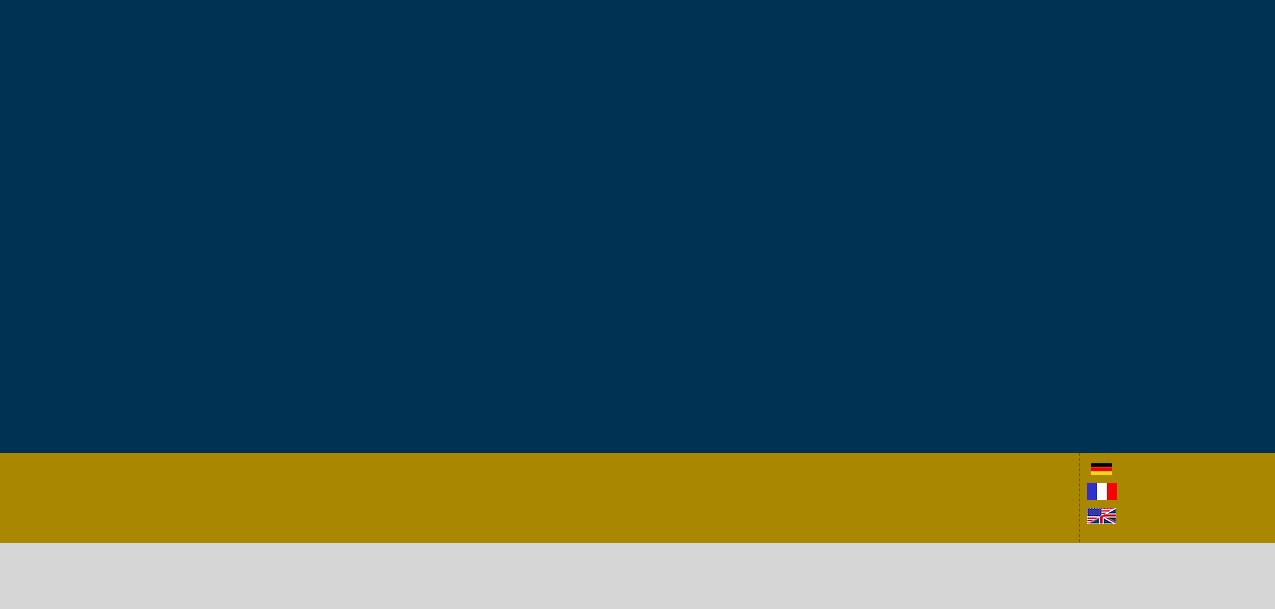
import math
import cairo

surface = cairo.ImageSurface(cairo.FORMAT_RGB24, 1275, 609)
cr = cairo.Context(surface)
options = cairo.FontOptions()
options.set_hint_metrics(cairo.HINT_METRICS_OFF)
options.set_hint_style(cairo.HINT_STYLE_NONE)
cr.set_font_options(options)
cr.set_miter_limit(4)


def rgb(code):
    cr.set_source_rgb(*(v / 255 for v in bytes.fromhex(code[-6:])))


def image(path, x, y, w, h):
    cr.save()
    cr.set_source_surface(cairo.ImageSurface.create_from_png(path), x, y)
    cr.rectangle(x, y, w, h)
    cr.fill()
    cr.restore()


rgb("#d6d6d6")
cr.paint()
rgb("#003254")
cr.rectangle(0, 0, 1275, 453)
cr.fill()
rgb("#a98700")
cr.rectangle(0, 453, 1275, 90)
cr.fill()
cr.new_path()
cr.move_to(1079.5, 453)
cr.line_to(1079.5, 542)
rgb("#6e5800")
cr.set_line_width(1)
cr.set_dash([3, 2.06])
cr.stroke()
image("img/1.png", 1091, 463, 21, 12)
image("img/2.png", 1087, 483, 30, 17)
image("img/3.png", 1087, 508, 29, 16)
surface.write_to_png("page.png")
